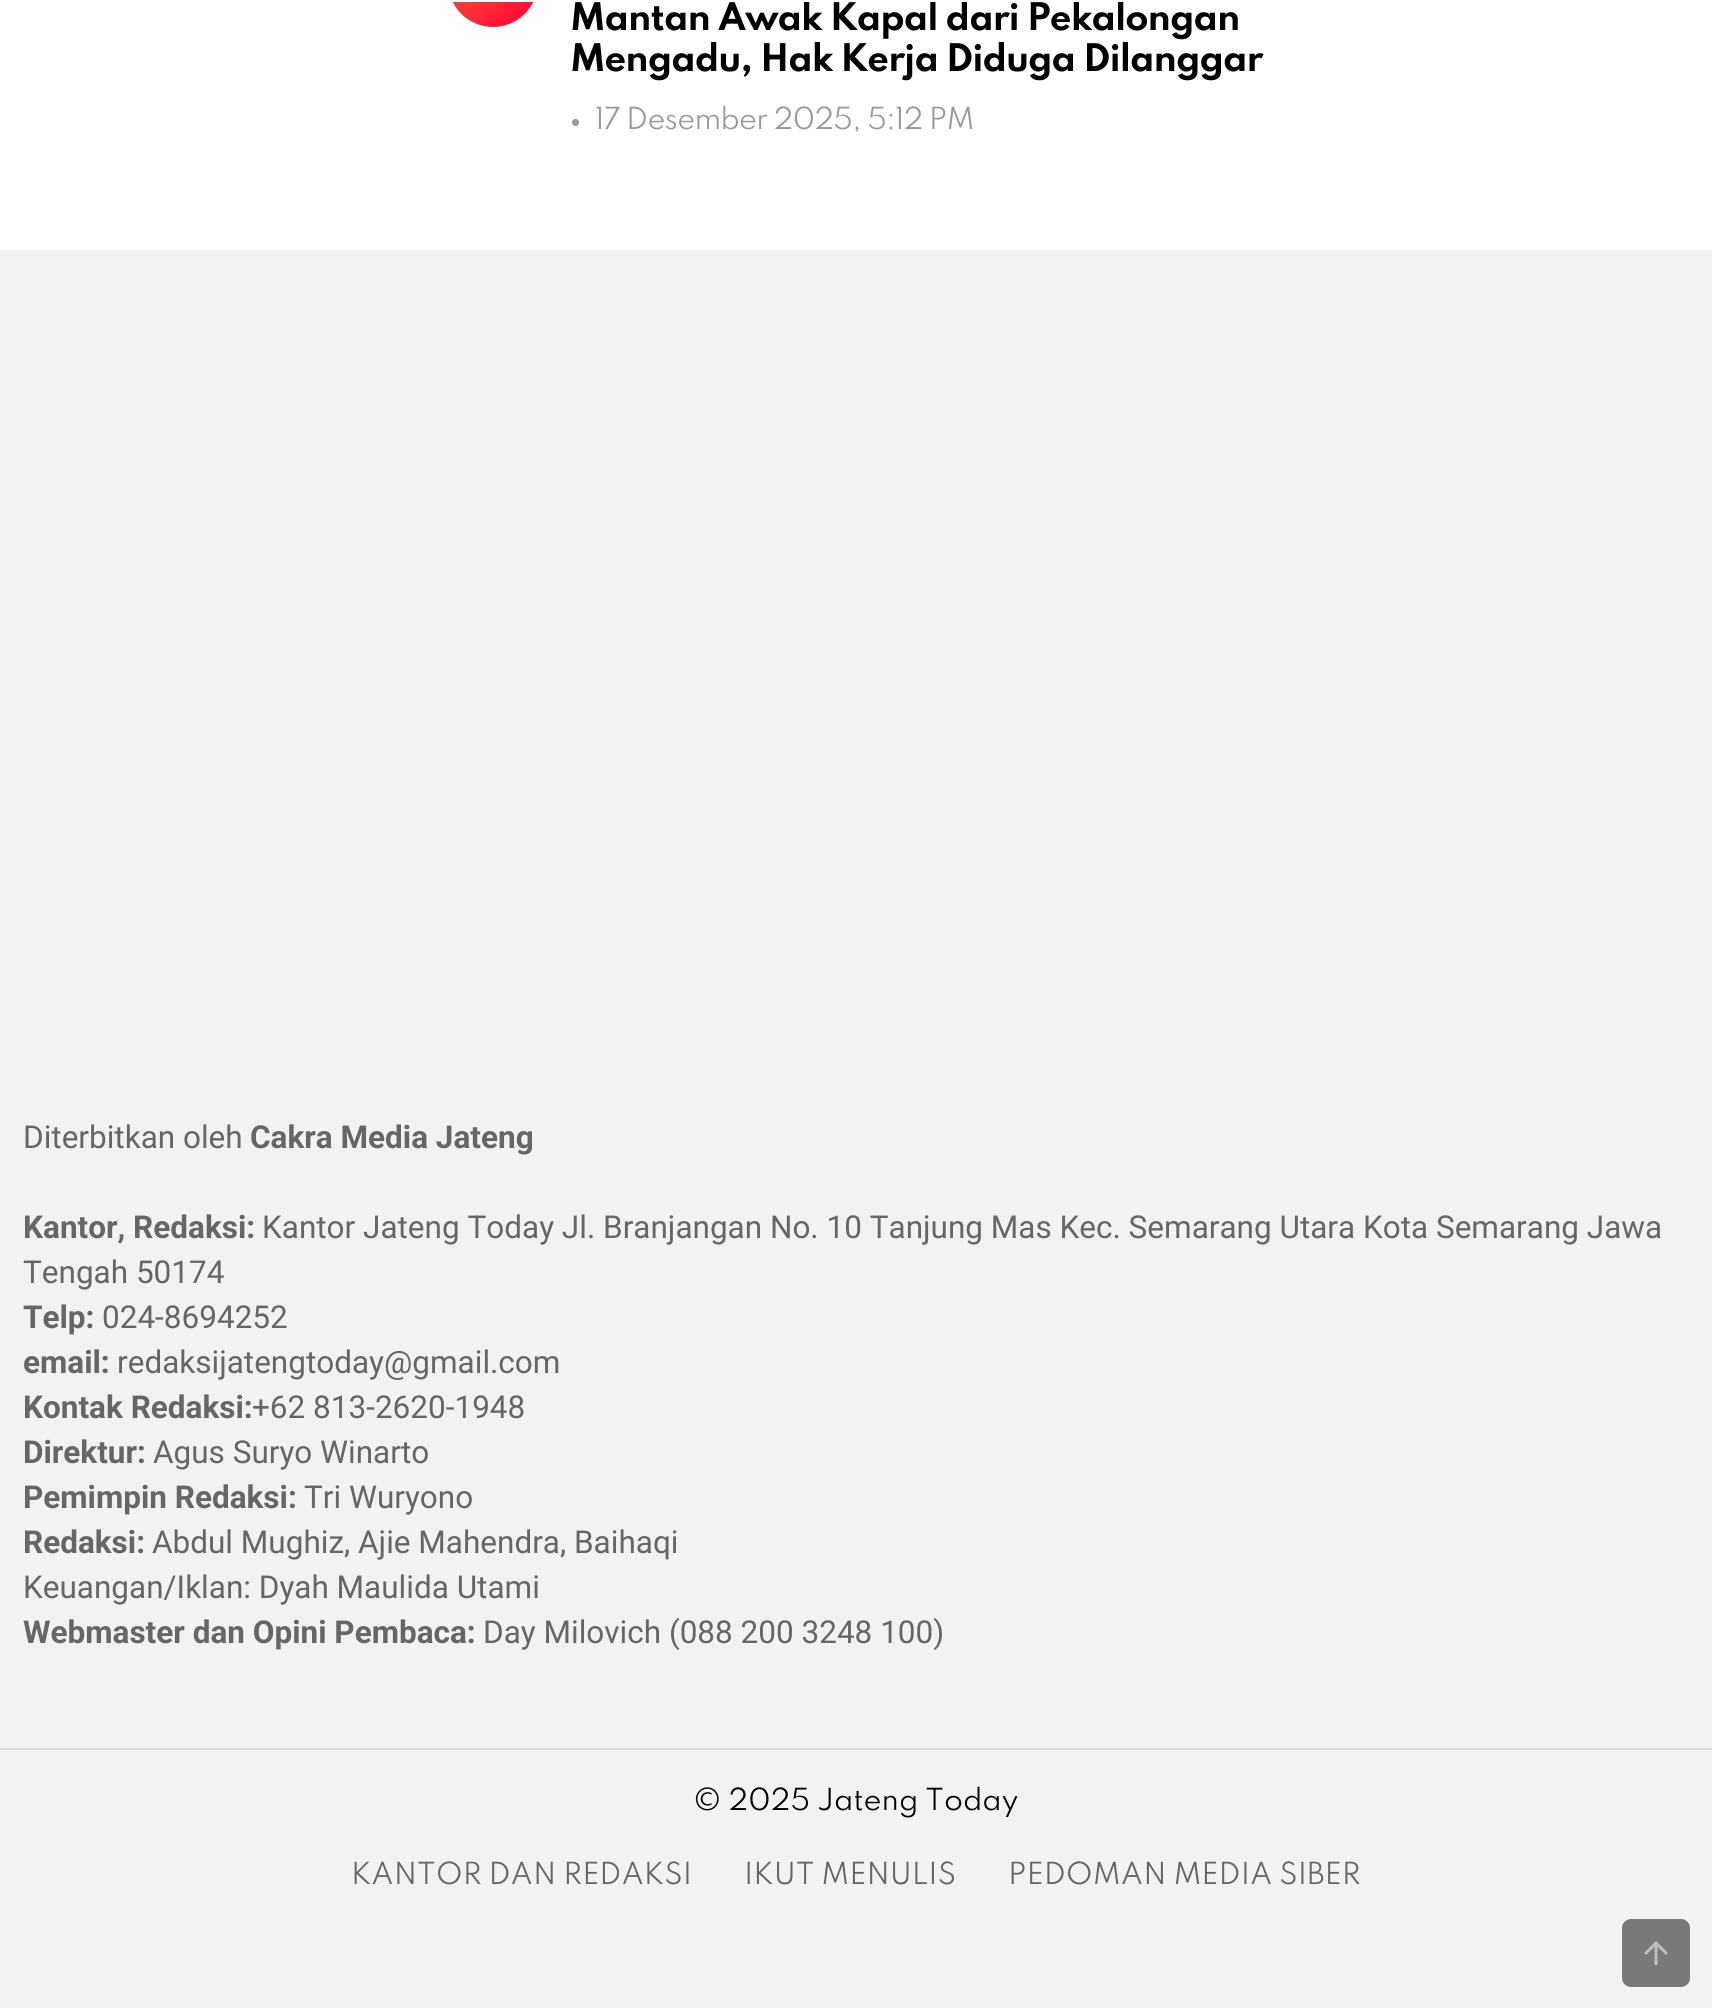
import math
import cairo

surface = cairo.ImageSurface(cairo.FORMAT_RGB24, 1712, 2008)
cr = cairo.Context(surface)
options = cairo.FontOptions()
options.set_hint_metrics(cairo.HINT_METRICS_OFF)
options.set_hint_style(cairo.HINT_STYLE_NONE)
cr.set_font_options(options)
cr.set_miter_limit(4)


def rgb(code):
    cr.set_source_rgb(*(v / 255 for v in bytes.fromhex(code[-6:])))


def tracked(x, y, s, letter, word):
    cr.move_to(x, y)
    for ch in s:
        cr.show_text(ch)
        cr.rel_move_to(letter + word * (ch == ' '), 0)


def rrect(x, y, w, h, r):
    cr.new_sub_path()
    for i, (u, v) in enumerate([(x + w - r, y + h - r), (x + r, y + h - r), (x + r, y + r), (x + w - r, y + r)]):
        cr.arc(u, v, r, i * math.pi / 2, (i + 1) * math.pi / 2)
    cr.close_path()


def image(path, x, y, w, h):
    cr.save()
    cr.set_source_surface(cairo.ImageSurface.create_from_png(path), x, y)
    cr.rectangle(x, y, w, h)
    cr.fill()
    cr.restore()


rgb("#ffffff")
cr.paint()
gradient = cairo.LinearGradient(538, 27, 448, -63)
gradient.add_color_stop_rgba(0, 1, 0, 0.212, 1)
gradient.add_color_stop_rgba(1, 1, 0.4, 0.212, 1)
cr.set_source(gradient)
rrect(448, -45, 90, 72, 45)
cr.fill()
rgb("#999999")
cr.arc(575.5, 122.5, 3.5, 0, 2 * math.pi)
cr.fill()
for x, y, w, h, color in [
    (0, 250, 1712, 1498, "#f2f2f2"),
    (0, 1748, 1712, 2, "#dbdbdb"),
    (0, 1750, 1712, 258, "#f2f2f2"),
]:
    rgb(color)
    cr.rectangle(x, y, w, h)
    cr.fill()
rgb("#797979")
rrect(1622, 1919, 68, 68, 9)
cr.fill()
image("img/1.png", 1644, 1941, 24, 24)
cr.select_font_face("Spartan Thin", cairo.FONT_SLANT_NORMAL, cairo.FONT_WEIGHT_BOLD)
cr.set_font_size(33.75)
rgb("#000000")
tracked(570, 30, "Mantan Awak Kapal dari Pekalongan", -1, 0)
rgb("#ffffff")
cr.rectangle(451, 0, 673, 2)
cr.fill()
rgb("#000000")
tracked(570, 71, "Mengadu, Hak Kerja Diduga Dilanggar", -1, 0)
cr.select_font_face("Spartan Thin")
cr.set_font_size(27)
rgb("#999999")
tracked(595, 129, "17 Desember 2025, 5:12 PM", -0.8, 0)
cr.select_font_face("Roboto")
cr.set_font_size(31.5)
rgb("#666666")
cr.move_to(23, 1148)
cr.show_text("Diterbitkan oleh")
cr.select_font_face("Roboto", cairo.FONT_SLANT_NORMAL, cairo.FONT_WEIGHT_BOLD)
cr.move_to(250, 1148)
cr.show_text("Cakra Media Jateng")
cr.move_to(23, 1238)
cr.show_text("Kantor, Redaksi:")
cr.select_font_face("Roboto")
cr.move_to(262, 1238)
cr.show_text("Kantor Jateng Today Jl. Branjangan No. 10 Tanjung Mas Kec. Semarang Utara Kota Semarang Jawa")
cr.move_to(23, 1283)
cr.show_text("Tengah 50174")
cr.select_font_face("Roboto", cairo.FONT_SLANT_NORMAL, cairo.FONT_WEIGHT_BOLD)
cr.move_to(23, 1328)
cr.show_text("Telp:")
cr.select_font_face("Roboto")
cr.move_to(102, 1328)
cr.show_text("024-8694252")
cr.select_font_face("Roboto", cairo.FONT_SLANT_NORMAL, cairo.FONT_WEIGHT_BOLD)
cr.move_to(23, 1373)
cr.show_text("email:")
cr.select_font_face("Roboto")
cr.move_to(117, 1373)
cr.show_text("redaksijatengtoday@gmail.com")
cr.select_font_face("Roboto", cairo.FONT_SLANT_NORMAL, cairo.FONT_WEIGHT_BOLD)
cr.move_to(23, 1418)
cr.show_text("Kontak Redaksi:")
cr.select_font_face("Roboto")
cr.move_to(252, 1418)
cr.show_text("+62 813-2620-1948")
cr.select_font_face("Roboto", cairo.FONT_SLANT_NORMAL, cairo.FONT_WEIGHT_BOLD)
cr.move_to(23, 1463)
cr.show_text("Direktur:")
cr.select_font_face("Roboto")
cr.move_to(153, 1463)
cr.show_text("Agus Suryo Winarto")
cr.select_font_face("Roboto", cairo.FONT_SLANT_NORMAL, cairo.FONT_WEIGHT_BOLD)
cr.move_to(23, 1508)
cr.show_text("Pemimpin Redaksi:")
cr.select_font_face("Roboto")
cr.move_to(304, 1508)
cr.show_text("Tri Wuryono")
cr.select_font_face("Roboto", cairo.FONT_SLANT_NORMAL, cairo.FONT_WEIGHT_BOLD)
cr.move_to(23, 1553)
cr.show_text("Redaksi:")
cr.select_font_face("Roboto")
cr.move_to(152, 1553)
cr.show_text("Abdul Mughiz, Ajie Mahendra, Baihaqi")
cr.move_to(23, 1598)
cr.show_text("Keuangan/Iklan: Dyah Maulida Utami")
cr.select_font_face("Roboto", cairo.FONT_SLANT_NORMAL, cairo.FONT_WEIGHT_BOLD)
cr.move_to(23, 1643)
cr.show_text("Webmaster dan Opini Pembaca:")
cr.select_font_face("Roboto")
cr.move_to(483, 1643)
cr.show_text("Day Milovich (088 200 3248 100)")
cr.select_font_face("Spartan Thin")
cr.set_font_size(27)
rgb("#000000")
cr.move_to(693, 1810)
cr.show_text("© 2025 Jateng Today")
rgb("#666666")
for x, y, s in [
    (351, 1884, "KANTOR DAN REDAKSI"),
    (744, 1884, "IKUT MENULIS"),
    (1008, 1884, "PEDOMAN MEDIA SIBER"),
]:
    cr.move_to(x, y)
    cr.show_text(s)
surface.write_to_png("page.png")
